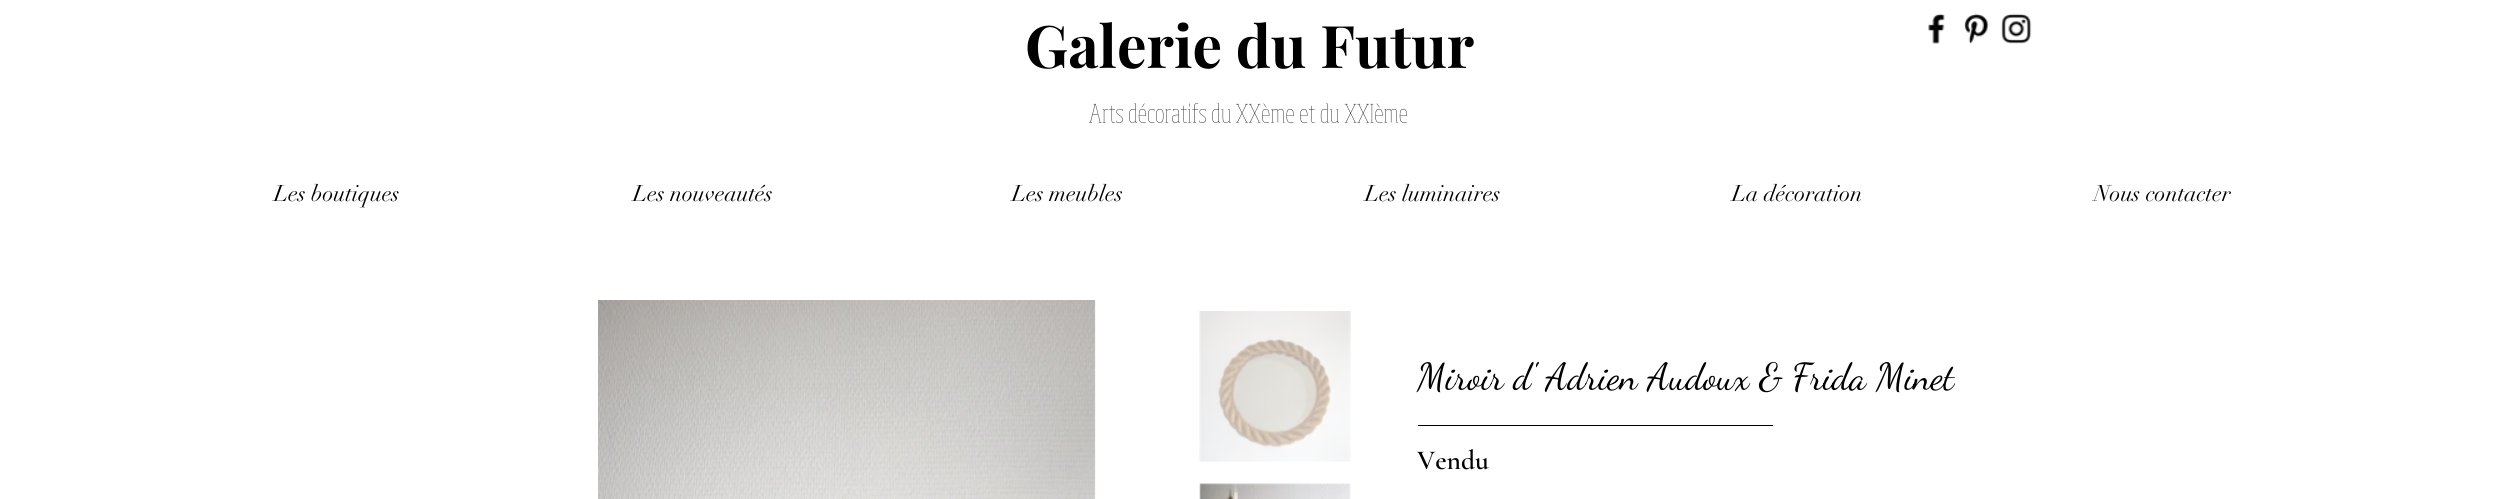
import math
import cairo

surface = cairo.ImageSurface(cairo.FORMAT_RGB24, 2498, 499)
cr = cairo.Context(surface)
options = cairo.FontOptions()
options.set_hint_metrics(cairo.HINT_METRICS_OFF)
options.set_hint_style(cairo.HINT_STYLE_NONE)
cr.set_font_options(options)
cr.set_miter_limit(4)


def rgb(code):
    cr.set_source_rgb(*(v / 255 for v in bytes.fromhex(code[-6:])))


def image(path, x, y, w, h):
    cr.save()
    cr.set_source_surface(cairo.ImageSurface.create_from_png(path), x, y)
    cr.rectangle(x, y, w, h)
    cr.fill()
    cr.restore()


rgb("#ffffff")
cr.paint()
image("img/1.png", 1928, 13, 17, 31)
image("img/2.png", 1964, 13, 25, 31)
image("img/3.png", 2001, 13, 31, 31)
image("img/4.png", 1089, 103, 318, 20)
image("img/5.png", 598, 300, 498, 199)
image("img/6.png", 1199, 311, 152, 151)
image("img/7.png", 1199, 483, 152, 16)
rgb("#000000")
cr.rectangle(1418, 425, 355, 1)
cr.fill()
cr.select_font_face("Playfair Display", cairo.FONT_SLANT_NORMAL, cairo.FONT_WEIGHT_BOLD)
cr.set_font_size(58.75)
cr.move_to(1025, 68)
cr.show_text("Galerie du Futur")
cr.select_font_face("didot")
cr.set_font_size(22.5)
for x, y, s in [
    (274, 201, "Les boutiques"),
    (633, 201, "Les nouveautés"),
    (1012, 201, "Les meubles"),
    (1365, 201, "Les luminaires"),
    (1732, 201, "La décoration"),
    (2094, 201, "Nous contacter"),
]:
    cr.move_to(x, y)
    cr.show_text(s)
cr.select_font_face("Dancing Script")
cr.set_font_size(37.5)
cr.move_to(1417, 389)
cr.show_text("Miroir d' Adrien Audoux & Frida Minet")
cr.select_font_face("Cormorant Garamond SemiBold")
cr.set_font_size(27.5)
cr.move_to(1417, 469)
cr.show_text("Vendu")
surface.write_to_png("page.png")
